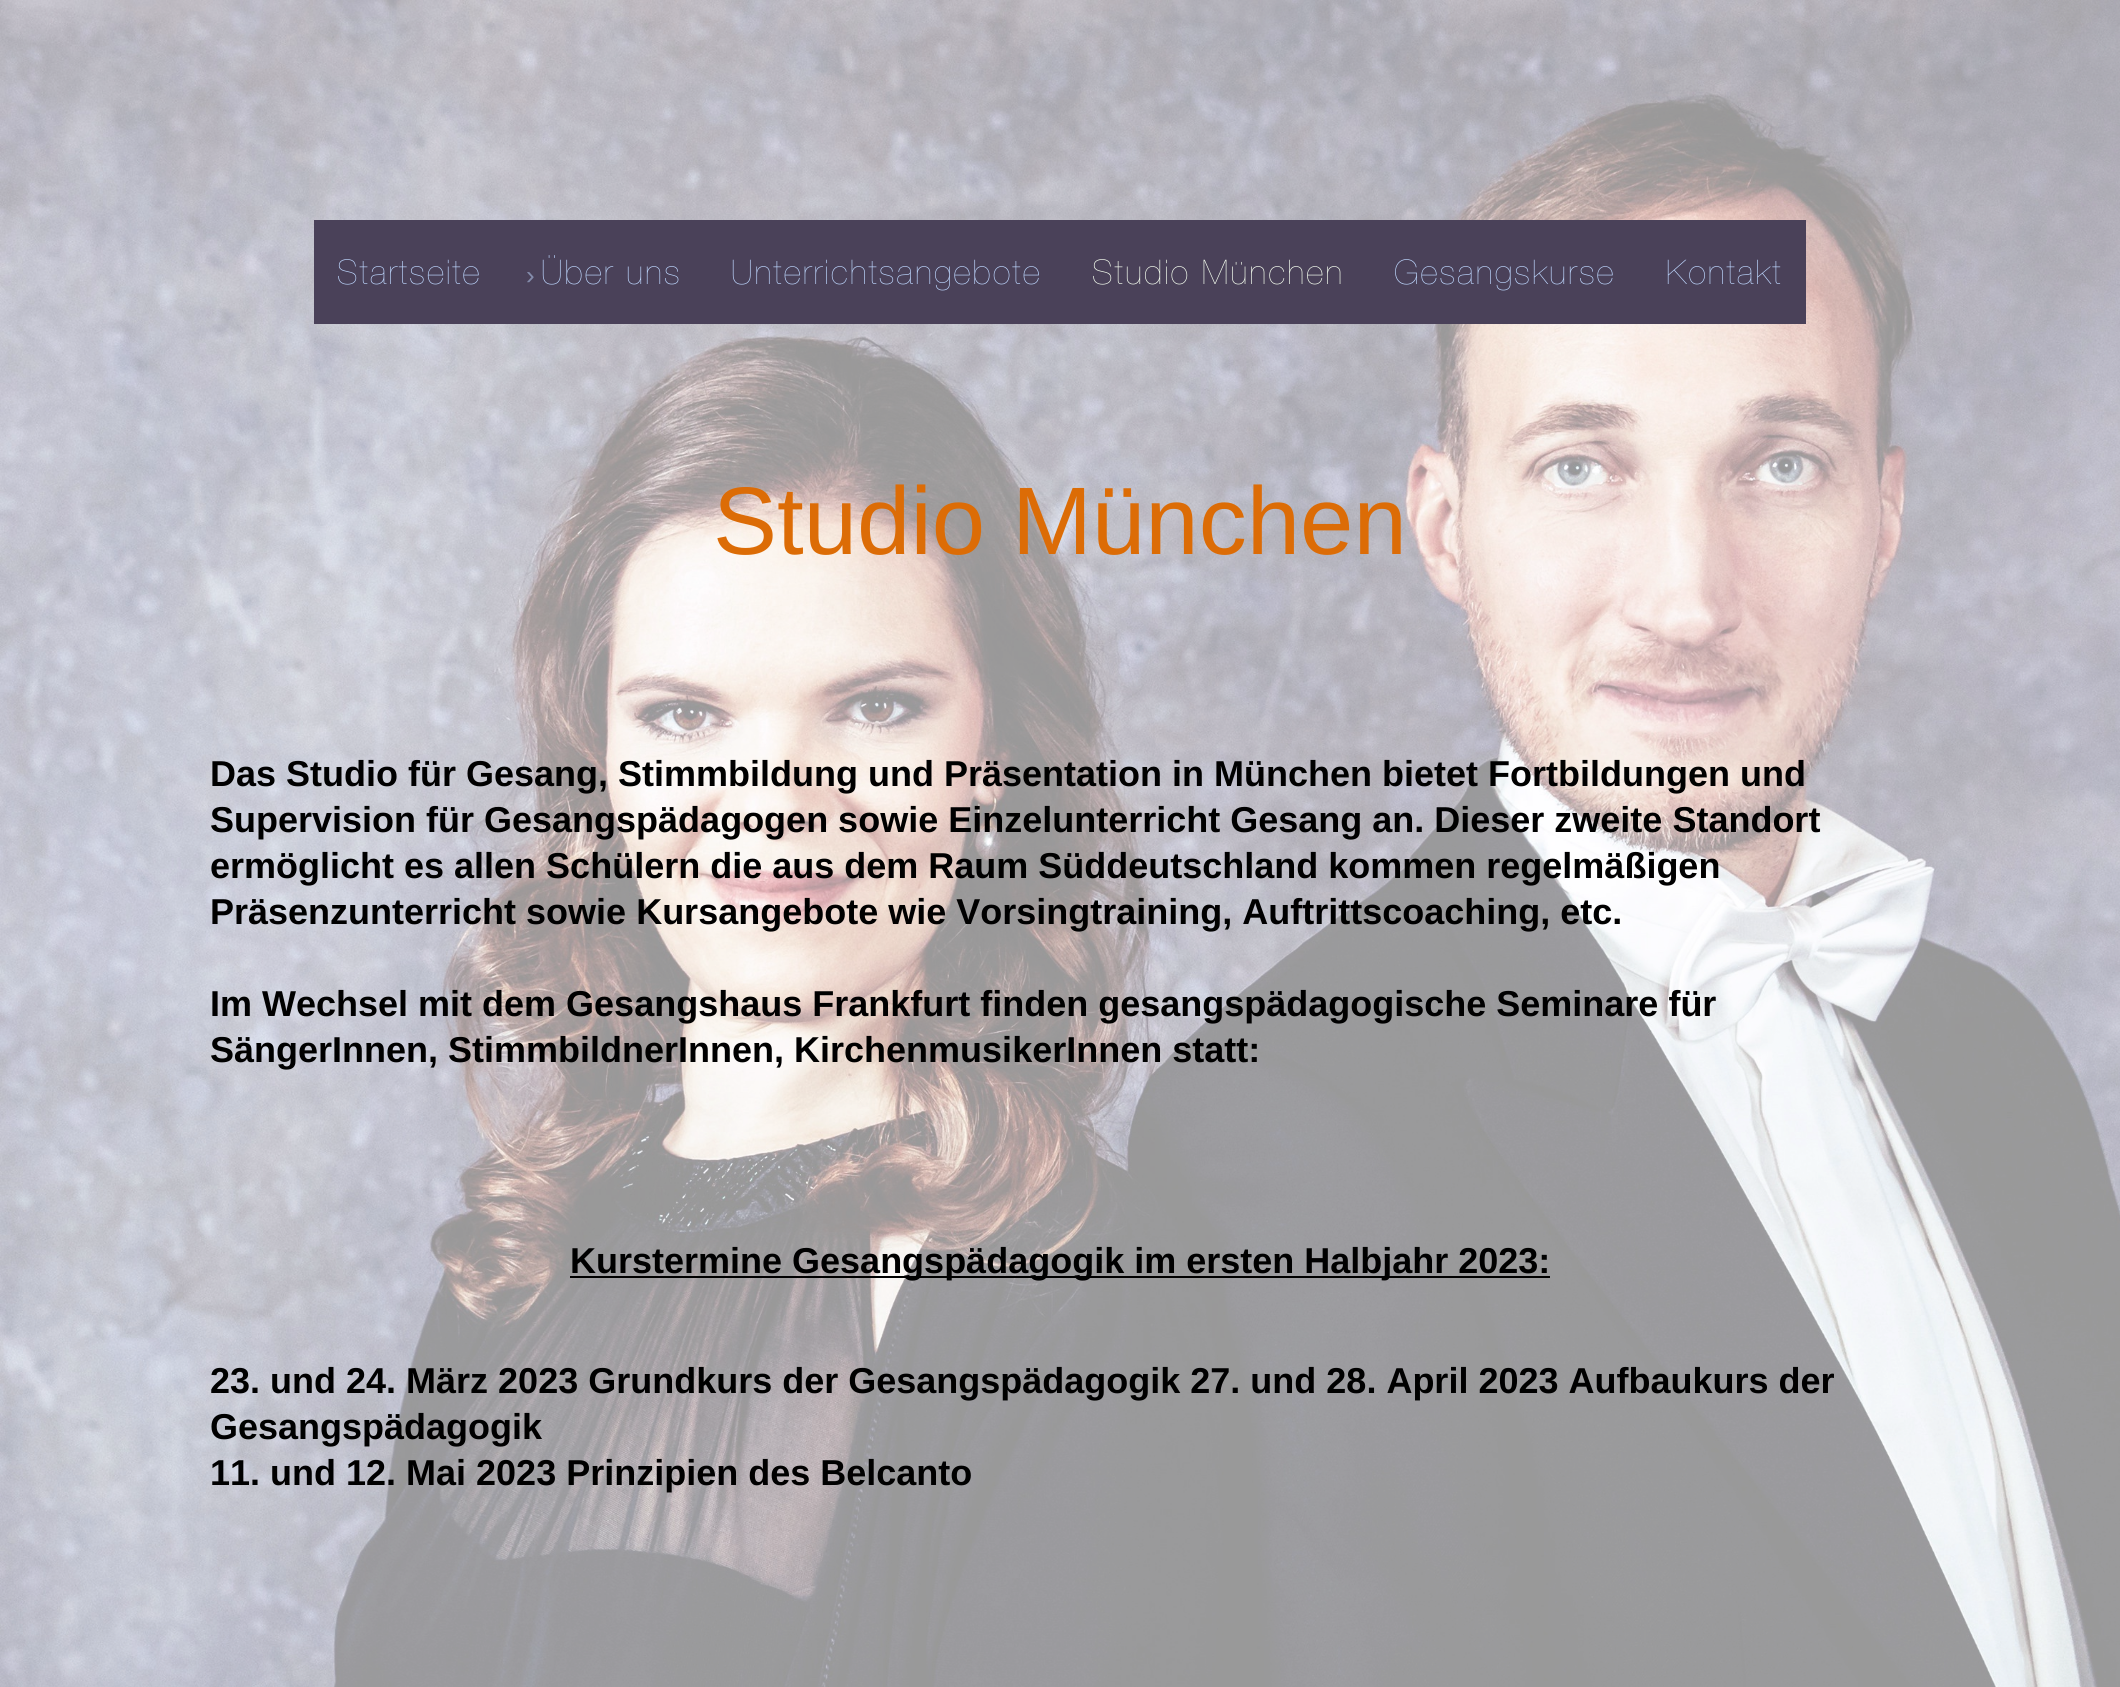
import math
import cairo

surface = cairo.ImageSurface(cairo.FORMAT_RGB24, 2120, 1687)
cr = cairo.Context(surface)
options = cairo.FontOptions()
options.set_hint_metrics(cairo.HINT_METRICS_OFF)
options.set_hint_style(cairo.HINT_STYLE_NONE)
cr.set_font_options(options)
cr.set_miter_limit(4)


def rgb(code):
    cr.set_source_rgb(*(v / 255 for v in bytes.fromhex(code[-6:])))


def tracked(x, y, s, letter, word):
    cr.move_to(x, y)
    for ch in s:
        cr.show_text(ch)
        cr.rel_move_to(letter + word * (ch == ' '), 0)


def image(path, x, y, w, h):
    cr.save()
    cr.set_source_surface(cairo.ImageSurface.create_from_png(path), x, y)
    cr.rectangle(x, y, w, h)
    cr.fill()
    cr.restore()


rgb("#ffffff")
cr.paint()
image("img/1.png", 0, 0, 2120, 1687)
rgb("#4a4159")
cr.rectangle(314, 220, 1492, 104)
cr.fill()
rgb("#000000")
cr.rectangle(570, 1276, 980, 2)
cr.fill()
cr.select_font_face("Helvetica Neue ExtraLight")
cr.set_font_size(34)
rgb("#bdd6fd")
tracked(337, 284, "Startseite", 2, 0)
cr.select_font_face("Liberation Sans")
cr.set_font_size(26)
rgb("#848cab")
cr.move_to(526, 284)
cr.show_text("›")
cr.select_font_face("Helvetica Neue ExtraLight")
cr.set_font_size(34)
rgb("#bdd6fd")
tracked(541, 284, "Über uns", 2, 0)
tracked(731, 284, "Unterrichtsangebote", 2, 0)
rgb("#f6fff0")
tracked(1092, 284, "Studio München", 2, 0)
rgb("#bdd6fd")
tracked(1394, 284, "Gesangskurse", 2, 0)
tracked(1666, 284, "Kontakt", 2, 0)
cr.select_font_face("Liberation Sans")
cr.set_font_size(96)
rgb("#dc6c06")
cr.move_to(713, 554)
cr.show_text("Studio München")
cr.select_font_face("Liberation Sans", cairo.FONT_SLANT_NORMAL, cairo.FONT_WEIGHT_BOLD)
cr.set_font_size(36)
rgb("#000000")
for x, y, s in [
    (210, 786, "Das Studio für Gesang, Stimmbildung und Präsentation in München bietet Fortbildungen und"),
    (210, 832, "Supervision für Gesangspädagogen sowie Einzelunterricht Gesang an. Dieser zweite Standort"),
    (210, 878, "ermöglicht es allen Schülern die aus dem Raum Süddeutschland kommen regelmäßigen"),
    (210, 924, "Präsenzunterricht sowie Kursangebote wie Vorsingtraining, Auftrittscoaching, etc."),
    (210, 1016, "Im Wechsel mit dem Gesangshaus Frankfurt finden gesangspädagogische Seminare für"),
    (210, 1062, "SängerInnen, StimmbildnerInnen, KirchenmusikerInnen statt:"),
    (570, 1273, "Kurstermine Gesangspädagogik im ersten Halbjahr 2023:"),
    (210, 1393, "23. und 24. März 2023 Grundkurs der Gesangspädagogik 27. und 28. April 2023 Aufbaukurs der"),
    (210, 1439, "Gesangspädagogik"),
    (210, 1485, "11. und 12. Mai 2023 Prinzipien des Belcanto"),
]:
    cr.move_to(x, y)
    cr.show_text(s)
surface.write_to_png("page.png")
